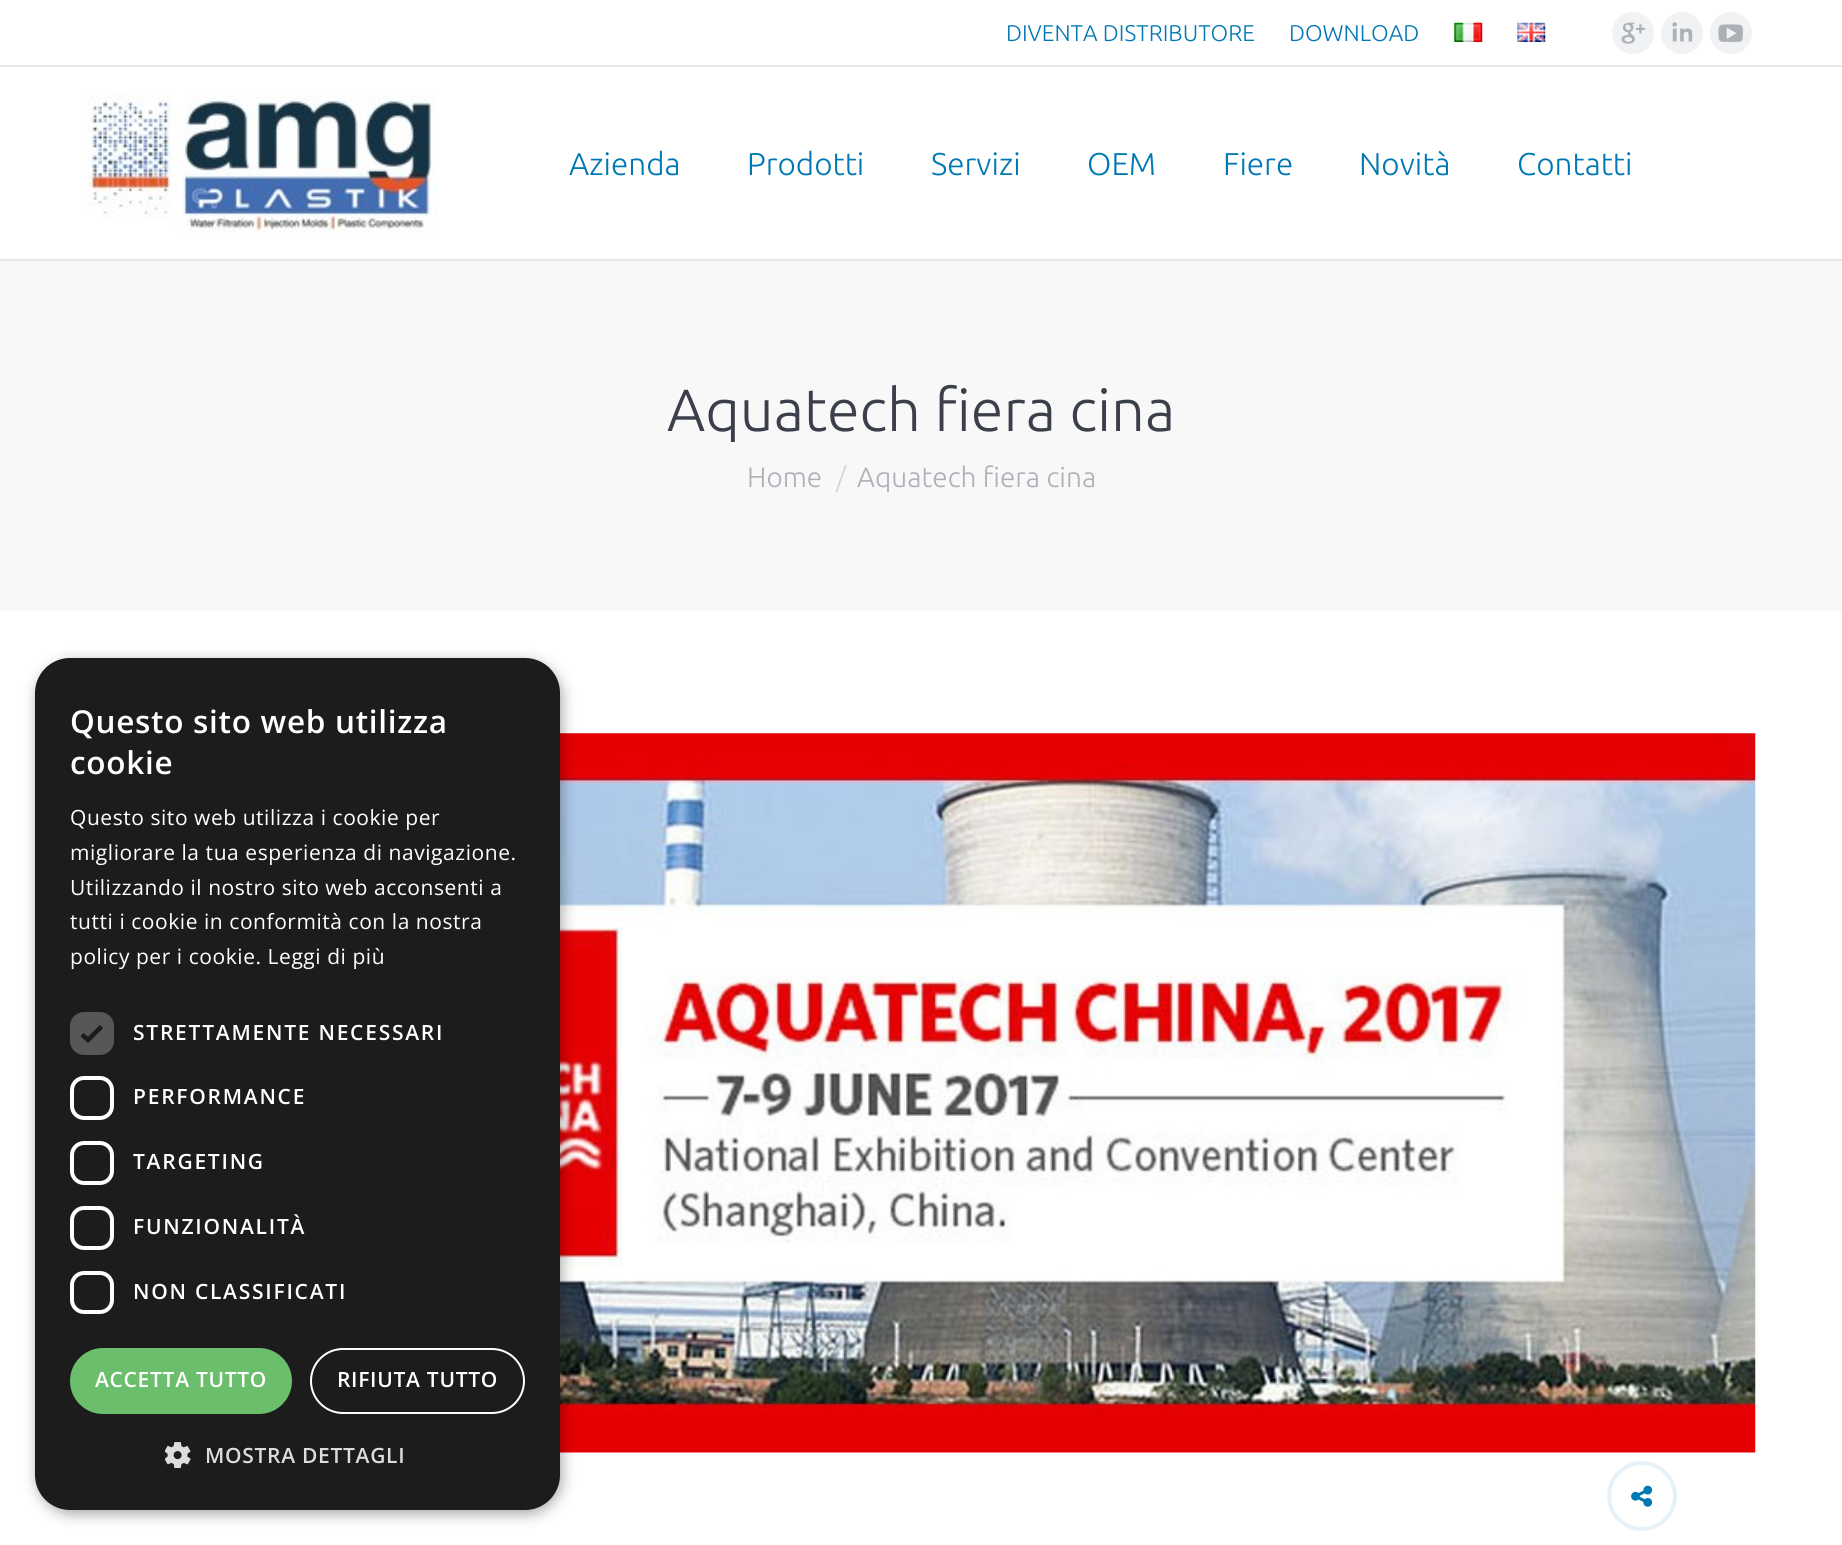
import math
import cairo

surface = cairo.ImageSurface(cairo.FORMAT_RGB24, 1842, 1545)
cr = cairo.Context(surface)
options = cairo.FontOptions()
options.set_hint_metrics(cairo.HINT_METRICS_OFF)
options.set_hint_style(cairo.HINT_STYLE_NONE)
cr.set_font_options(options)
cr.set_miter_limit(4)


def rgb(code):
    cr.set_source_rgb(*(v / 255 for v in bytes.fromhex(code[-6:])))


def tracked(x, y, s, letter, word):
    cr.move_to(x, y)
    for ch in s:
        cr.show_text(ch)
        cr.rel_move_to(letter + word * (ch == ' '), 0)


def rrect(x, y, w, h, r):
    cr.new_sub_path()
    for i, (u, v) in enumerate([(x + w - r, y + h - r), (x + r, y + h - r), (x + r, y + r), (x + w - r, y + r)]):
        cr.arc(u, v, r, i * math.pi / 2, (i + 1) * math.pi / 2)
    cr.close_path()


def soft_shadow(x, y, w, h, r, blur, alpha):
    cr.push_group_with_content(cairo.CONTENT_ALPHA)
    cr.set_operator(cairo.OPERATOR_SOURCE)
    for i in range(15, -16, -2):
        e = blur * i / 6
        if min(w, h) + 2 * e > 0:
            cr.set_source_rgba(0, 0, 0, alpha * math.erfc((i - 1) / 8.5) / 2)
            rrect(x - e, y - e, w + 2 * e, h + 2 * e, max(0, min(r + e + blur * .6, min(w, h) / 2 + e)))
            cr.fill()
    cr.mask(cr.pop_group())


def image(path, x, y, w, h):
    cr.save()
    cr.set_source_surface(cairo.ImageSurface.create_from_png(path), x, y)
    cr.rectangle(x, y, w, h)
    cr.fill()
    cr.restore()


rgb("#ffffff")
cr.paint()
rgb("#e6e7e9")
cr.rectangle(0, 259, 1842, 2)
cr.fill()
image("img/1.png", 1454, 22, 29, 20)
image("img/2.png", 1517, 22, 29, 20)
rgb("#f1f2f3")
cr.arc(1633, 33, 21, 0, 2 * math.pi)
cr.fill()
image("img/3.png", 1621, 22, 24, 22)
cr.arc(1682, 33, 21, 0, 2 * math.pi)
cr.fill()
image("img/4.png", 1672, 22, 21, 20)
cr.arc(1731, 33, 21, 0, 2 * math.pi)
cr.fill()
image("img/5.png", 1718, 24, 25, 18)
rgb("#e6e7e9")
cr.rectangle(0, 65, 1842, 2)
cr.fill()
image("img/6.png", 87, 94, 351, 139)
rgb("#f8f8f9")
cr.rectangle(0, 261, 1842, 350)
cr.fill()
image("img/7.png", 560, 733, 1196, 720)
cr.arc(1642, 1496, 33, 0, 2 * math.pi)
rgb("#e6f2f8")
cr.set_line_width(4)
cr.stroke()
image("img/8.png", 1631, 1485, 22, 22)
rgb("#000000")
soft_shadow(37, 662, 525, 852, 35, 7, 0.35)
rgb("#1c1c1c")
rrect(35, 658, 525, 852, 35)
cr.fill()
rgb("#575757")
rrect(70, 1012, 44, 43, 14)
cr.fill()
cr.new_path()
cr.move_to(82, 1034.5)
cr.line_to(88, 1040)
cr.line_to(101.5, 1026.5)
rgb("#1c1c1c")
cr.set_line_width(4.6)
cr.stroke()
rrect(72, 1078, 40, 40, 12)
rgb("#ffffff")
cr.set_line_width(4)
cr.stroke()
rrect(72, 1143, 40, 40, 12)
cr.stroke()
rrect(72, 1208, 40, 40, 12)
cr.stroke()
rrect(72, 1273, 40, 39, 12)
cr.stroke()
rgb("#6bbe6b")
rrect(70, 1348, 222, 66, 33)
cr.fill()
rrect(311, 1349, 213, 64, 32)
rgb("#ffffff")
cr.set_line_width(2)
cr.stroke()
image("img/9.png", 165, 1442, 26, 26)
cr.select_font_face("Ubuntu Light")
cr.set_font_size(22.75)
rgb("#0078b4")
cr.move_to(1006, 41)
cr.show_text("DIVENTA DISTRIBUTORE")
cr.move_to(1289, 41)
cr.show_text("DOWNLOAD")
cr.set_font_size(31.5)
for x, y, s in [
    (569, 175, "Azienda"),
    (747, 175, "Prodotti"),
    (931, 175, "Servizi"),
    (1087, 175, "OEM"),
    (1223, 175, "Fiere"),
    (1359, 175, "Novità"),
    (1517, 175, "Contatti"),
]:
    cr.move_to(x, y)
    cr.show_text(s)
cr.set_font_size(59.5)
rgb("#3b3f4a")
cr.move_to(667, 431)
cr.show_text("Aquatech fiera cina")
cr.set_font_size(28)
rgb("#adb0b6")
cr.move_to(747, 487)
cr.show_text("Home")
rgb("#d3d4d8")
cr.move_to(836, 487)
cr.show_text("/")
rgb("#adb0b6")
cr.move_to(857, 487)
cr.show_text("Aquatech fiera cina")
cr.select_font_face("Open Sans SemiBold")
cr.set_font_size(31.5)
rgb("#ffffff")
tracked(70, 733, "Questo sito web utilizza", 0.7, 0)
tracked(70, 774, "cookie", 0.7, 0)
cr.select_font_face("Open Sans")
cr.set_font_size(21)
for x, y, s in [
    (70, 825, "Questo sito web utilizza i cookie per"),
    (70, 860, "migliorare la tua esperienza di navigazione."),
    (70, 895, "Utilizzando il nostro sito web acconsenti a"),
    (70, 929, "tutti i cookie in conformità con la nostra"),
    (70, 964, "policy per i cookie. Leggi di più"),
]:
    tracked(x, y, s, 0.55, 0)
cr.select_font_face("Open Sans SemiBold")
for x, y, s in [
    (133, 1040, "STRETTAMENTE NECESSARI"),
    (133, 1104, "PERFORMANCE"),
    (133, 1169, "TARGETING"),
    (133, 1234, "FUNZIONALITÀ"),
    (133, 1299, "NON CLASSIFICATI"),
]:
    tracked(x, y, s, 1.75, 0)
tracked(95, 1387, "ACCETTA TUTTO", 0.7, 0)
tracked(337, 1387, "RIFIUTA TUTTO", 0.7, 0)
rgb("#dddddd")
tracked(205, 1463, "MOSTRA DETTAGLI", 0.7, 0)
surface.write_to_png("page.png")
